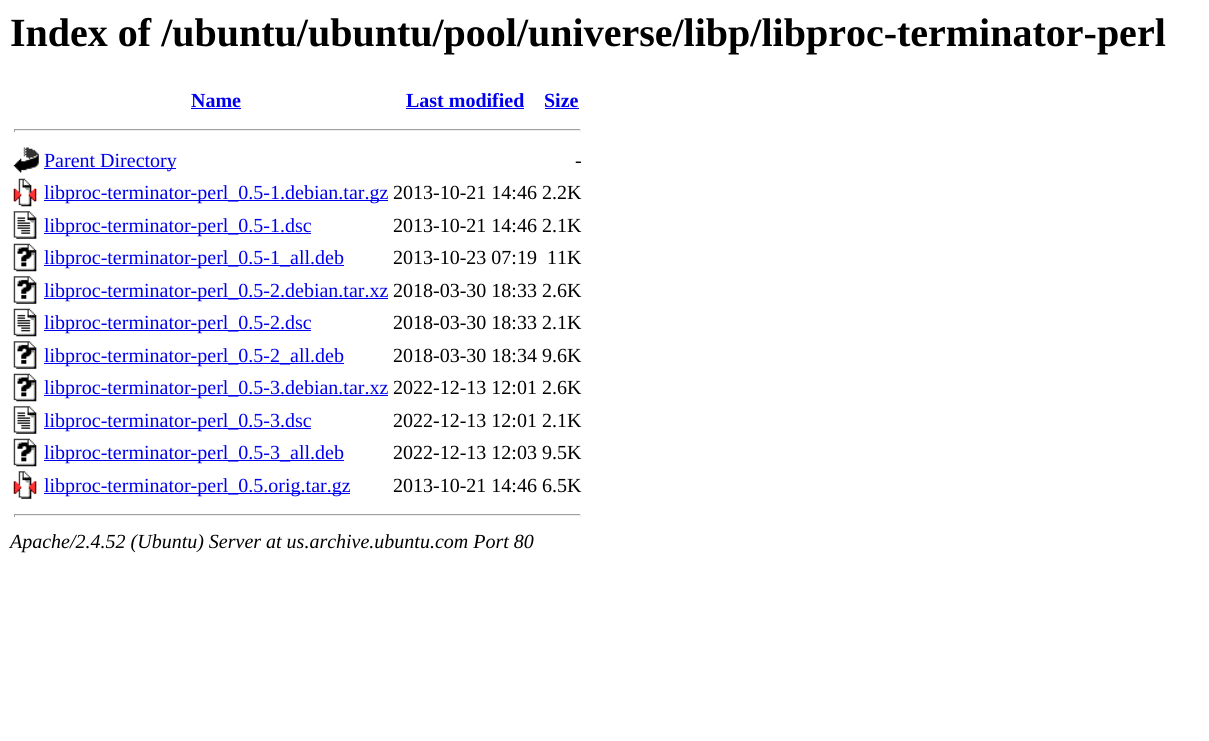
import math
import cairo

surface = cairo.ImageSurface(cairo.FORMAT_RGB24, 1209, 741)
cr = cairo.Context(surface)
options = cairo.FontOptions()
options.set_hint_metrics(cairo.HINT_METRICS_OFF)
options.set_hint_style(cairo.HINT_STYLE_NONE)
cr.set_font_options(options)
cr.set_miter_limit(4)


def rgb(code):
    cr.set_source_rgb(*(v / 255 for v in bytes.fromhex(code[-6:])))


def image(path, x, y, w, h):
    cr.save()
    cr.set_source_surface(cairo.ImageSurface.create_from_png(path), x, y)
    cr.rectangle(x, y, w, h)
    cr.fill()
    cr.restore()


rgb("#ffffff")
cr.paint()
for x, y, w, h, color in [
    (191, 108, 50, 1, "#0000ee"),
    (406, 108, 118, 1, "#0000ee"),
    (545, 108, 34, 1, "#0000ee"),
    (14, 129, 567, 1, "#9f9f9f"),
    (580, 129, 1, 3, "#eeeeee"),
    (14, 130, 567, 1, "#eeeeee"),
    (14, 129, 1, 3, "#9f9f9f"),
]:
    rgb(color)
    cr.rectangle(x, y, w, h)
    cr.fill()
image("img/1.png", 13, 147, 26, 26)
rgb("#0000ee")
cr.rectangle(44, 168, 132, 1)
cr.fill()
image("img/2.png", 13, 178, 24, 29)
cr.rectangle(44, 200, 344, 1)
cr.fill()
image("img/3.png", 13, 211, 24, 28)
cr.rectangle(44, 233, 267, 1)
cr.fill()
image("img/4.png", 13, 243, 24, 29)
cr.rectangle(44, 265, 300, 1)
cr.fill()
image("img/5.png", 13, 276, 24, 28)
cr.rectangle(44, 298, 344, 1)
cr.fill()
image("img/6.png", 13, 308, 24, 29)
cr.rectangle(44, 330, 267, 1)
cr.fill()
image("img/7.png", 13, 341, 24, 28)
cr.rectangle(44, 363, 300, 1)
cr.fill()
image("img/4.png", 13, 373, 24, 29)
cr.rectangle(44, 395, 344, 1)
cr.fill()
image("img/3.png", 13, 406, 24, 28)
cr.rectangle(44, 428, 267, 1)
cr.fill()
image("img/4.png", 13, 438, 24, 29)
cr.rectangle(44, 460, 300, 1)
cr.fill()
image("img/8.png", 13, 471, 24, 28)
for x, y, w, h, color in [
    (44, 493, 306, 1, "#0000ee"),
    (14, 514, 567, 1, "#9f9f9f"),
    (580, 514, 1, 3, "#eeeeee"),
    (14, 515, 567, 1, "#eeeeee"),
    (14, 514, 1, 3, "#9f9f9f"),
]:
    rgb(color)
    cr.rectangle(x, y, w, h)
    cr.fill()
cr.select_font_face("Liberation Serif", cairo.FONT_SLANT_NORMAL, cairo.FONT_WEIGHT_BOLD)
cr.set_font_size(40)
rgb("#000000")
cr.move_to(10, 46)
cr.show_text("Index of /ubuntu/ubuntu/pool/universe/libp/libproc-terminator-perl")
cr.set_font_size(20)
rgb("#0000ee")
for x, y, s in [
    (191, 107, "Name"),
    (406, 107, "Last modified"),
    (544, 107, "Size"),
]:
    cr.move_to(x, y)
    cr.show_text(s)
cr.select_font_face("Liberation Serif")
cr.move_to(44, 167)
cr.show_text("Parent Directory")
rgb("#000000")
cr.move_to(575, 167)
cr.show_text("-")
rgb("#0000ee")
cr.move_to(44, 199)
cr.show_text("libproc-terminator-perl_0.5-1.debian.tar.gz")
rgb("#000000")
cr.move_to(393, 199)
cr.show_text("2013-10-21 14:46 2.2K")
rgb("#0000ee")
cr.move_to(44, 232)
cr.show_text("libproc-terminator-perl_0.5-1.dsc")
rgb("#000000")
cr.move_to(393, 232)
cr.show_text("2013-10-21 14:46 2.1K")
rgb("#0000ee")
cr.move_to(44, 264)
cr.show_text("libproc-terminator-perl_0.5-1_all.deb")
rgb("#000000")
cr.move_to(393, 264)
cr.show_text("2013-10-23 07:19")
cr.move_to(547, 264)
cr.show_text("11K")
rgb("#0000ee")
cr.move_to(44, 297)
cr.show_text("libproc-terminator-perl_0.5-2.debian.tar.xz")
rgb("#000000")
cr.move_to(393, 297)
cr.show_text("2018-03-30 18:33 2.6K")
rgb("#0000ee")
cr.move_to(44, 329)
cr.show_text("libproc-terminator-perl_0.5-2.dsc")
rgb("#000000")
cr.move_to(393, 329)
cr.show_text("2018-03-30 18:33 2.1K")
rgb("#0000ee")
cr.move_to(44, 362)
cr.show_text("libproc-terminator-perl_0.5-2_all.deb")
rgb("#000000")
cr.move_to(393, 362)
cr.show_text("2018-03-30 18:34 9.6K")
rgb("#0000ee")
cr.move_to(44, 394)
cr.show_text("libproc-terminator-perl_0.5-3.debian.tar.xz")
rgb("#000000")
cr.move_to(393, 394)
cr.show_text("2022-12-13 12:01 2.6K")
rgb("#0000ee")
cr.move_to(44, 427)
cr.show_text("libproc-terminator-perl_0.5-3.dsc")
rgb("#000000")
cr.move_to(393, 427)
cr.show_text("2022-12-13 12:01 2.1K")
rgb("#0000ee")
cr.move_to(44, 459)
cr.show_text("libproc-terminator-perl_0.5-3_all.deb")
rgb("#000000")
cr.move_to(393, 459)
cr.show_text("2022-12-13 12:03 9.5K")
rgb("#0000ee")
cr.move_to(44, 492)
cr.show_text("libproc-terminator-perl_0.5.orig.tar.gz")
rgb("#000000")
cr.move_to(393, 492)
cr.show_text("2013-10-21 14:46 6.5K")
cr.select_font_face("Liberation Serif", cairo.FONT_SLANT_ITALIC)
cr.move_to(10, 548)
cr.show_text("Apache/2.4.52 (Ubuntu) Server at us.archive.ubuntu.com Port 80")
surface.write_to_png("page.png")
